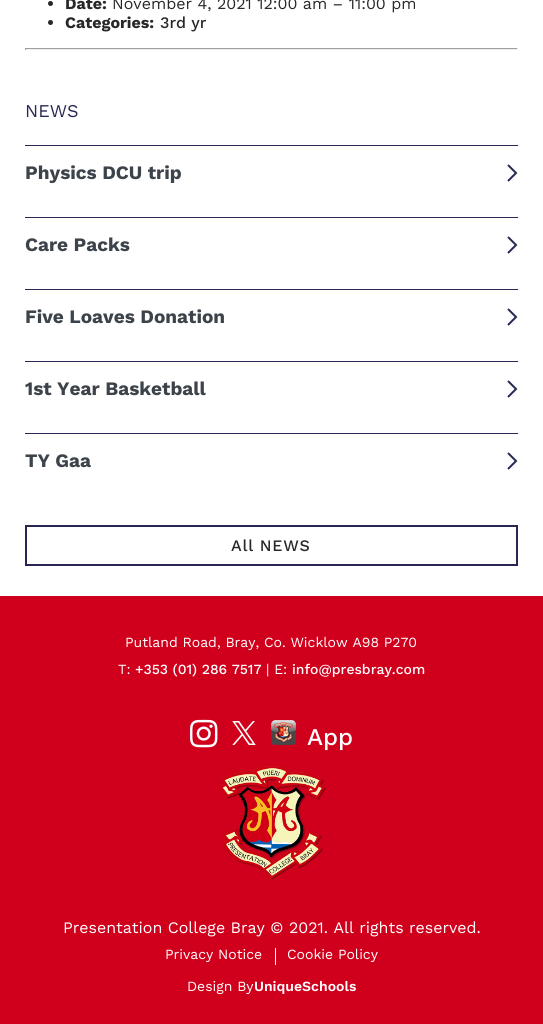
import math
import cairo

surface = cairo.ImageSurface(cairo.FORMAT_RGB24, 543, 1024)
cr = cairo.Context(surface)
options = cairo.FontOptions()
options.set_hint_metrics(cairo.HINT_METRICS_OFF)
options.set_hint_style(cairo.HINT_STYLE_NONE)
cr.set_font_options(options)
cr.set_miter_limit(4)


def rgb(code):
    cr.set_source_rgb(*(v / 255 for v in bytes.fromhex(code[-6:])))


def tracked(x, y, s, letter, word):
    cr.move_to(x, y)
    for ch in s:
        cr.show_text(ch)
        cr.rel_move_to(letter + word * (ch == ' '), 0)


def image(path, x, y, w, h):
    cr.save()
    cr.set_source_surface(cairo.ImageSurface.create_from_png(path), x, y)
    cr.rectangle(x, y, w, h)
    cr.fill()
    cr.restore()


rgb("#ffffff")
cr.paint()
rgb("#282828")
cr.arc(50.5, 3.5, 2.5, 0, 2 * math.pi)
cr.fill()
cr.arc(50.5, 22.5, 2.5, 0, 2 * math.pi)
cr.fill()
for x, y, w, h, color in [
    (25, 48, 493, 1, "#9f9f9f"),
    (517, 48, 1, 2, "#eeeeee"),
    (25, 49, 493, 1, "#eeeeee"),
    (25, 48, 1, 2, "#9f9f9f"),
    (25, 145, 493, 1, "#282754"),
]:
    rgb(color)
    cr.rectangle(x, y, w, h)
    cr.fill()
cr.new_path()
cr.move_to(508, 165)
cr.line_to(516, 173)
cr.line_to(508, 181)
cr.stroke()
cr.rectangle(25, 217, 493, 1)
cr.fill()
cr.new_path()
cr.move_to(508, 237)
cr.line_to(516, 245)
cr.line_to(508, 253)
cr.stroke()
cr.rectangle(25, 289, 493, 1)
cr.fill()
cr.new_path()
cr.move_to(508, 309)
cr.line_to(516, 317)
cr.line_to(508, 325)
cr.stroke()
cr.rectangle(25, 361, 493, 1)
cr.fill()
cr.new_path()
cr.move_to(508, 381)
cr.line_to(516, 389)
cr.line_to(508, 397)
cr.stroke()
cr.rectangle(25, 433, 493, 1)
cr.fill()
cr.new_path()
cr.move_to(508, 453)
cr.line_to(516, 461)
cr.line_to(508, 469)
cr.stroke()
cr.rectangle(26, 526, 491, 39)
cr.stroke()
rgb("#d0001c")
cr.rectangle(0, 596, 543, 428)
cr.fill()
image("img/1.png", 190, 719, 28, 29)
image("img/2.png", 232, 721, 24, 24)
image("img/3.png", 271, 720, 25, 25)
image("img/4.png", 219, 766, 108, 114)
rgb("#ffffff")
cr.rectangle(275, 948, 1, 17)
cr.fill()
cr.select_font_face("Work Sans", cairo.FONT_SLANT_NORMAL, cairo.FONT_WEIGHT_BOLD)
cr.set_font_size(16)
rgb("#282828")
cr.move_to(65, 9)
cr.show_text("Date:")
cr.select_font_face("Work Sans")
cr.move_to(112, 9)
cr.show_text("November 4, 2021 12:00 am – 11:00 pm")
cr.select_font_face("Work Sans", cairo.FONT_SLANT_NORMAL, cairo.FONT_WEIGHT_BOLD)
cr.move_to(65, 28)
cr.show_text("Categories:")
cr.select_font_face("Work Sans Medium")
cr.move_to(160, 28)
cr.show_text("3rd yr")
cr.select_font_face("Work Sans")
cr.set_font_size(18)
rgb("#282754")
cr.move_to(25, 117)
cr.show_text("NEWS")
cr.select_font_face("Work Sans", cairo.FONT_SLANT_NORMAL, cairo.FONT_WEIGHT_BOLD)
cr.set_font_size(19)
rgb("#3d434b")
for x, y, s in [
    (25, 179, "Physics DCU trip"),
    (25, 251, "Care Packs"),
    (25, 323, "Five Loaves Donation"),
    (25, 395, "1st Year Basketball"),
    (25, 467, "TY Gaa"),
]:
    cr.move_to(x, y)
    cr.show_text(s)
cr.select_font_face("Work Sans Medium")
cr.set_font_size(16)
rgb("#282828")
tracked(231, 551, "All NEWS", 0.75, 0)
cr.select_font_face("Work Sans")
cr.set_font_size(14)
rgb("#ffffff")
cr.move_to(125, 647)
cr.show_text("Putland Road, Bray, Co. Wicklow A98 P270")
cr.move_to(118, 674)
cr.show_text("T:")
cr.select_font_face("Work Sans Medium")
cr.move_to(135, 674)
cr.show_text("+353 (01) 286 7517")
cr.select_font_face("Work Sans")
cr.move_to(266, 674)
cr.show_text("| E:")
cr.select_font_face("Work Sans Medium")
cr.move_to(292, 674)
cr.show_text("info@presbray.com")
cr.set_font_size(24)
cr.move_to(307, 745)
cr.show_text("App")
cr.select_font_face("Work Sans")
cr.set_font_size(16)
cr.move_to(63, 933)
cr.show_text("Presentation College Bray © 2021. All rights reserved.")
cr.set_font_size(14)
for x, y, s in [
    (165, 959, "Privacy Notice"),
    (287, 959, "Cookie Policy"),
    (187, 991, "Design By"),
]:
    cr.move_to(x, y)
    cr.show_text(s)
cr.select_font_face("Work Sans SemiBold")
cr.move_to(254, 991)
cr.show_text("UniqueSchools")
surface.write_to_png("page.png")
